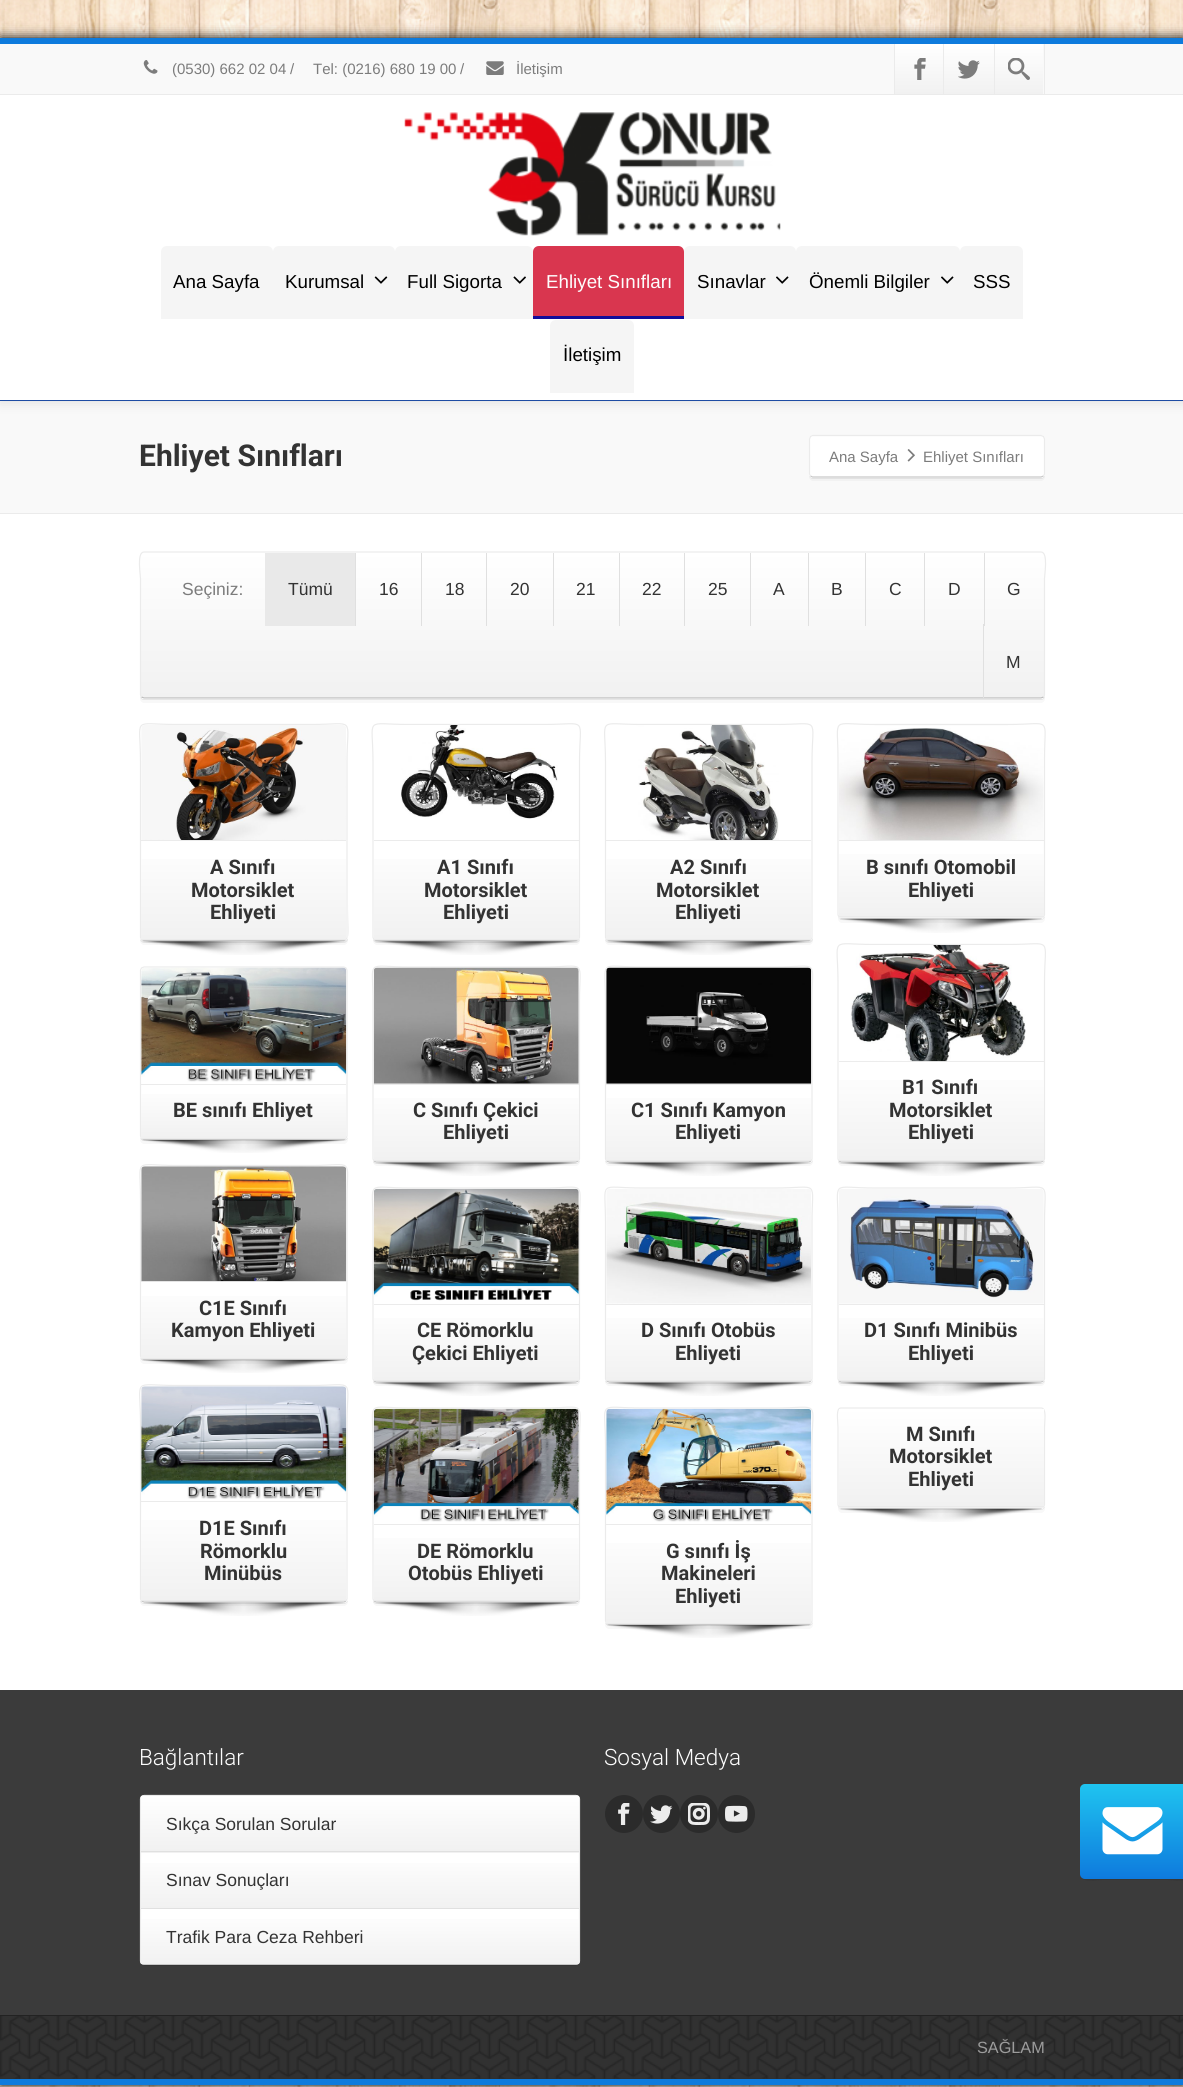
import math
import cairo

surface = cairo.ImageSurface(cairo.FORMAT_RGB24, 1183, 2087)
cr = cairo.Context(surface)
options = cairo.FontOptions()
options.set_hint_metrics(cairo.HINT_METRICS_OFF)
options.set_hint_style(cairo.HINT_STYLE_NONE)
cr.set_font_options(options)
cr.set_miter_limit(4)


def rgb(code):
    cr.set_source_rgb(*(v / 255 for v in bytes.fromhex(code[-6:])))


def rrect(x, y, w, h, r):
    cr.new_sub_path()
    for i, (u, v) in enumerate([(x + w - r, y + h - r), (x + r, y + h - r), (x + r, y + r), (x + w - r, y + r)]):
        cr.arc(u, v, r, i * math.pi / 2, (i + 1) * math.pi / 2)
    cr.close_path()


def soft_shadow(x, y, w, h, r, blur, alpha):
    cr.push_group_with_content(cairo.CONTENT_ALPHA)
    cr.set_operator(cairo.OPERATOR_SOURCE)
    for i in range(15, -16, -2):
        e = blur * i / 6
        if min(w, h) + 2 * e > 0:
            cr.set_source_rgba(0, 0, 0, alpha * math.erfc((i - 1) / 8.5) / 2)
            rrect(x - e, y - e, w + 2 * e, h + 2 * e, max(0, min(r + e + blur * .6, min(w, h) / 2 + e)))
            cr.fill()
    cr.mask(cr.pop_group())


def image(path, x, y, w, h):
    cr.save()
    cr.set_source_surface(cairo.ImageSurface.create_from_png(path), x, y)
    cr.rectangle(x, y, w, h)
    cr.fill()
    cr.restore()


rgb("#ffffff")
cr.paint()
image("img/1.png", 0, 0, 1183, 2087)
rgb("#000000")
soft_shadow(0, 38, 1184, 2047, 0, 6, 1)
for x, y, w, h, color in [
    (0, 514, 1183, 1176, "#ffffff"),
    (0, 38, 1183, 6, "#0e7bdd"),
    (0, 2079, 1183, 6, "#0e7bdd"),
    (0, 401, 1183, 112, "#f9f9f9"),
]:
    rgb(color)
    cr.rectangle(x, y, w, h)
    cr.fill()
cr.save()
cr.rectangle(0, 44, 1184, 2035)
cr.clip()
rgb("#000000")
soft_shadow(0, 46, 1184, 357, 0, 6, 0.1)
cr.restore()
cr.rectangle(0, 44, 1183, 50)
cr.fill()
rgb("#ebebeb")
cr.rectangle(0, 94, 1183, 1)
cr.fill()
image("img/2.png", 143, 60, 15, 14)
image("img/3.png", 486, 61, 18, 14)
gradient = cairo.LinearGradient(920, 44, 920, 94)
gradient.add_color_stop_rgba(0, 1, 1, 1, 1)
gradient.add_color_stop_rgba(1, 0.945, 0.945, 0.945, 1)
cr.set_source(gradient)
cr.rectangle(895, 44, 48, 50)
cr.fill()
rgb("#ebebeb")
cr.rectangle(894, 44, 1, 50)
cr.fill()
image("img/4.png", 914, 58, 12, 22)
gradient = cairo.LinearGradient(969, 44, 969, 94)
gradient.add_color_stop_rgba(0, 1, 1, 1, 1)
gradient.add_color_stop_rgba(1, 0.945, 0.945, 0.945, 1)
cr.set_source(gradient)
cr.rectangle(944, 44, 50, 50)
cr.fill()
rgb("#ebebeb")
cr.rectangle(994, 44, 1, 50)
cr.fill()
cr.rectangle(943, 44, 1, 50)
cr.fill()
image("img/5.png", 958, 60, 22, 19)
cr.rectangle(1044, 44, 1, 50)
cr.fill()
gradient = cairo.LinearGradient(1019, 44, 1019, 94)
gradient.add_color_stop_rgba(0, 1, 1, 1, 1)
gradient.add_color_stop_rgba(1, 0.945, 0.945, 0.945, 1)
cr.set_source(gradient)
cr.rectangle(995, 44, 48, 50)
cr.fill()
image("img/6.png", 1008, 58, 22, 22)
rgb("#ffffff")
cr.rectangle(0, 95, 1183, 305)
cr.fill()
rgb("#1d4ca3")
cr.rectangle(0, 400, 1183, 1)
cr.fill()
image("img/7.png", 404, 112, 377, 124)
rgb("#f5f5f5")
cr.new_path()
cr.move_to(167, 246)
cr.line_to(267, 246)
cr.curve_to(270.5, 246, 273, 248.5, 273, 252)
cr.line_to(273, 319)
cr.line_to(161, 319)
cr.line_to(161, 252)
cr.curve_to(161, 248.5, 163.5, 246, 167, 246)
cr.close_path()
cr.fill()
cr.new_path()
cr.move_to(279, 246)
cr.line_to(389, 246)
cr.curve_to(392.5, 246, 395, 248.5, 395, 252)
cr.line_to(395, 319)
cr.line_to(273, 319)
cr.line_to(273, 252)
cr.curve_to(273, 248.5, 275.5, 246, 279, 246)
cr.close_path()
cr.fill()
image("img/8.png", 374, 276, 14, 8)
cr.new_path()
cr.move_to(401, 246)
cr.line_to(527, 246)
cr.curve_to(530.5, 246, 533, 248.5, 533, 252)
cr.line_to(533, 319)
cr.line_to(395, 319)
cr.line_to(395, 252)
cr.curve_to(395, 248.5, 397.5, 246, 401, 246)
cr.close_path()
cr.fill()
image("img/9.png", 513, 276, 13, 8)
rgb("#d9364f")
cr.new_path()
cr.move_to(539, 246)
cr.line_to(678, 246)
cr.curve_to(681.5, 246, 684, 248.5, 684, 252)
cr.line_to(684, 319)
cr.line_to(533, 319)
cr.line_to(533, 252)
cr.curve_to(533, 248.5, 535.5, 246, 539, 246)
cr.close_path()
cr.fill()
rgb("#130c99")
cr.rectangle(533, 316, 151, 3)
cr.fill()
rgb("#f5f5f5")
cr.new_path()
cr.move_to(690, 246)
cr.line_to(790, 246)
cr.curve_to(793.5, 246, 796, 248.5, 796, 252)
cr.line_to(796, 319)
cr.line_to(684, 319)
cr.line_to(684, 252)
cr.curve_to(684, 248.5, 686.5, 246, 690, 246)
cr.close_path()
cr.fill()
image("img/10.png", 776, 276, 13, 8)
cr.new_path()
cr.move_to(802, 246)
cr.line_to(954, 246)
cr.curve_to(957.5, 246, 960, 248.5, 960, 252)
cr.line_to(960, 319)
cr.line_to(796, 319)
cr.line_to(796, 252)
cr.curve_to(796, 248.5, 798.5, 246, 802, 246)
cr.close_path()
cr.fill()
image("img/10.png", 941, 276, 13, 8)
cr.new_path()
cr.move_to(966, 246)
cr.line_to(1017, 246)
cr.curve_to(1020.5, 246, 1023, 248.5, 1023, 252)
cr.line_to(1023, 319)
cr.line_to(960, 319)
cr.line_to(960, 252)
cr.curve_to(960, 248.5, 962.5, 246, 966, 246)
cr.close_path()
cr.fill()
cr.new_path()
cr.move_to(556, 320)
cr.line_to(628, 320)
cr.curve_to(631.5, 320, 634, 322.5, 634, 326)
cr.line_to(634, 393)
cr.line_to(550, 393)
cr.line_to(550, 326)
cr.curve_to(550, 322.5, 552.5, 320, 556, 320)
cr.close_path()
cr.fill()
rgb("#ebebeb")
cr.rectangle(0, 513, 1183, 1)
cr.fill()
rgb("#e8e8e8")
cr.new_path()
cr.move_to(809, 475)
cr.curve_to(809, 477, 811, 479, 813, 479)
cr.line_to(1041, 479)
cr.curve_to(1044, 479, 1045, 476, 1045, 474)
cr.curve_to(1045, 476, 1043, 478, 1041, 478)
cr.line_to(812, 478)
cr.curve_to(811, 478, 810, 477, 809, 475)
cr.close_path()
cr.fill()
cr.set_source_rgba(0, 0, 0, 0.03)
cr.new_path()
cr.move_to(809, 475)
cr.line_to(809, 477)
cr.curve_to(809, 479, 811, 481, 813, 481)
cr.line_to(1041, 481)
cr.curve_to(1043, 481, 1045, 479, 1045, 477)
cr.line_to(1045, 474)
cr.curve_to(1045, 476, 1043, 478, 1041, 478)
cr.line_to(812, 478)
cr.curve_to(811, 478, 810, 477, 809, 475)
cr.close_path()
cr.fill()
rgb("#ffffff")
rrect(809, 435, 236, 43, 4)
cr.fill()
cr.new_path()
cr.move_to(1043.5, 476)
cr.line_to(1041, 477)
cr.line_to(812.5, 477)
cr.line_to(810.5, 476)
rgb("#c7c7c7")
cr.set_line_width(1.2)
cr.stroke()
cr.new_path()
cr.move_to(810.5, 476)
cr.line_to(809.5, 474)
cr.line_to(809.5, 439)
cr.line_to(810.5, 436.5)
cr.line_to(812.5, 435.5)
cr.line_to(1041, 435.5)
cr.line_to(1043.5, 436.5)
cr.line_to(1044.5, 439)
cr.line_to(1044.5, 474)
cr.line_to(1043.5, 476)
rgb("#ebebeb")
cr.stroke()
image("img/11.png", 907, 449, 8, 13)
rgb("#ededed")
cr.new_path()
cr.move_to(140, 695)
cr.curve_to(140, 698, 141, 700, 144, 700)
cr.line_to(1041, 700)
cr.curve_to(1044, 700, 1045, 698, 1045, 695)
cr.curve_to(1045, 697, 1043, 699, 1041, 699)
cr.line_to(144, 699)
cr.curve_to(142, 699, 140, 697, 140, 695)
cr.close_path()
cr.fill()
cr.set_source_rgba(0, 0, 0, 0.03)
cr.new_path()
cr.move_to(140, 695)
cr.line_to(140, 699)
cr.curve_to(140, 701, 142, 703, 144, 703)
cr.line_to(1041, 703)
cr.curve_to(1043, 703, 1045, 701, 1045, 699)
cr.line_to(1045, 695)
cr.curve_to(1045, 697, 1043, 699, 1041, 699)
cr.line_to(144, 699)
cr.curve_to(142, 699, 140, 697, 140, 695)
cr.close_path()
cr.fill()
rgb("#ffffff")
rrect(140, 551, 905, 148, 4)
cr.fill()
cr.save()
rrect(140, 551, 905, 148, 4)
cr.clip()
gradient = cairo.LinearGradient(593, 552, 593, 698)
gradient.add_color_stop_rgba(0, 1, 1, 1, 1)
gradient.add_color_stop_rgba(1, 0.945, 0.945, 0.945, 1)
cr.set_source(gradient)
cr.rectangle(140, 553, 905, 145)
cr.fill()
cr.restore()
cr.new_path()
cr.move_to(1043.5, 697)
cr.line_to(1041, 698)
cr.line_to(144, 698)
cr.line_to(141.5, 697)
cr.set_source_rgba(0, 0, 0, 0.22)
cr.stroke()
cr.new_path()
cr.move_to(141.5, 697)
cr.line_to(140.5, 695)
cr.line_to(140.5, 578.5)
cr.curve_to(140.5, 575, 136.5, 552, 144, 552)
cr.line_to(1041, 552)
cr.curve_to(1048.5, 552, 1044.5, 575, 1044.5, 578.5)
cr.line_to(1044.5, 695)
cr.line_to(1043.5, 697)
rgb("#ebebeb")
cr.stroke()
for x, y, w, h, color in [
    (265, 553, 90, 73, "#e9e9e9"),
    (355, 553, 1, 73, "#e0e0e0"),
    (421, 553, 1, 73, "#e0e0e0"),
    (486, 553, 1, 73, "#e0e0e0"),
    (553, 553, 1, 73, "#e0e0e0"),
    (619, 553, 1, 73, "#e0e0e0"),
    (684, 553, 1, 73, "#e0e0e0"),
    (750, 553, 1, 73, "#e0e0e0"),
    (808, 553, 1, 73, "#e0e0e0"),
    (865, 553, 1, 73, "#e0e0e0"),
    (924, 553, 1, 73, "#e0e0e0"),
    (984, 553, 1, 73, "#e0e0e0"),
    (983, 624, 1, 74, "#e0e0e0"),
]:
    rgb(color)
    cr.rectangle(x, y, w, h)
    cr.fill()
rgb("#ededed")
cr.new_path()
cr.move_to(140, 938)
cr.line_to(140, 939)
cr.curve_to(140, 941, 142, 943, 144, 943)
cr.line_to(344, 943)
cr.curve_to(346, 943, 348, 941, 348, 939)
cr.line_to(348, 729)
cr.line_to(347, 727)
cr.line_to(348, 902)
cr.curve_to(348, 950, 357, 941, 310, 941)
cr.line_to(144, 941)
cr.curve_to(142, 941, 140, 940, 140, 938)
cr.close_path()
cr.fill()
cr.set_source_rgba(0, 0, 0, 0.03)
cr.new_path()
cr.move_to(140, 938)
cr.line_to(140, 941)
cr.curve_to(140, 943, 142, 945, 144, 945)
cr.line_to(344, 945)
cr.curve_to(346, 945, 348, 943, 348, 941)
cr.line_to(348, 732)
cr.line_to(348, 730)
cr.line_to(348, 938)
cr.curve_to(348, 940, 346, 941, 344, 941)
cr.line_to(144, 941)
cr.curve_to(142, 941, 140, 940, 140, 938)
cr.close_path()
cr.fill()
rgb("#ffffff")
rrect(140, 724, 208, 217, 4)
cr.fill()
cr.new_path()
cr.move_to(346, 939.5)
cr.line_to(344, 940.5)
cr.line_to(144, 940.5)
cr.line_to(141.5, 939.5)
rgb("#c7c7c7")
cr.stroke()
cr.new_path()
cr.move_to(141.5, 939.5)
cr.line_to(140.5, 937.5)
cr.line_to(140.5, 762.5)
cr.curve_to(140.5, 715, 130.5, 724.5, 177, 724.5)
cr.line_to(310.5, 724.5)
cr.curve_to(357, 724.5, 347, 715, 347, 762.5)
cr.line_to(347, 937.5)
cr.line_to(346, 939.5)
rgb("#ebebeb")
cr.stroke()
cr.rectangle(141, 840, 205, 1)
cr.fill()
image("img/12.png", 141, 725, 205, 115)
gradient = cairo.LinearGradient(244, 841, 244, 939)
gradient.add_color_stop_rgba(0, 1, 1, 1, 1)
gradient.add_color_stop_rgba(1, 0.945, 0.945, 0.945, 1)
cr.set_source(gradient)
cr.rectangle(141, 859, 205, 80)
cr.fill()
rgb("#ebebeb")
cr.rectangle(141, 939, 205, 1)
cr.fill()
image("img/13.png", 143, 941, 201, 14)
rgb("#ededed")
cr.new_path()
cr.move_to(373, 939)
cr.curve_to(373, 941, 375, 943, 377, 943)
cr.line_to(576, 943)
cr.curve_to(578, 943, 580, 941, 580, 939)
cr.line_to(580, 938)
cr.curve_to(580, 940, 578, 941, 576, 941)
cr.line_to(376, 941)
cr.curve_to(375, 941, 374, 941, 373, 939)
cr.close_path()
cr.fill()
cr.set_source_rgba(0, 0, 0, 0.03)
cr.new_path()
cr.move_to(373, 939)
cr.line_to(373, 941)
cr.curve_to(373, 943, 375, 945, 377, 945)
cr.line_to(576, 945)
cr.curve_to(578, 945, 580, 943, 580, 941)
cr.line_to(580, 938)
cr.curve_to(580, 940, 578, 941, 576, 941)
cr.line_to(376, 941)
cr.curve_to(375, 941, 374, 940, 373, 939)
cr.close_path()
cr.fill()
rgb("#ffffff")
rrect(373, 724, 207, 217, 4)
cr.fill()
cr.new_path()
cr.move_to(578.5, 939.5)
cr.line_to(576, 940.5)
cr.line_to(376, 940.5)
cr.line_to(374, 939.5)
rgb("#c7c7c7")
cr.stroke()
cr.new_path()
cr.move_to(374, 939.5)
cr.line_to(373, 937.5)
cr.line_to(373, 762.5)
cr.curve_to(373, 715, 363, 724.5, 409.5, 724.5)
cr.line_to(543, 724.5)
cr.curve_to(589.5, 724.5, 579.5, 715, 579.5, 762.5)
cr.line_to(579.5, 937.5)
cr.line_to(578.5, 939.5)
rgb("#ebebeb")
cr.stroke()
cr.rectangle(374, 840, 205, 1)
cr.fill()
image("img/14.png", 401, 725, 157, 94)
gradient = cairo.LinearGradient(476, 841, 476, 939)
gradient.add_color_stop_rgba(0, 1, 1, 1, 1)
gradient.add_color_stop_rgba(1, 0.945, 0.945, 0.945, 1)
cr.set_source(gradient)
cr.rectangle(374, 859, 205, 80)
cr.fill()
rgb("#ebebeb")
cr.rectangle(374, 939, 205, 1)
cr.fill()
image("img/15.png", 375, 941, 202, 14)
rgb("#ededed")
cr.new_path()
cr.move_to(605, 938)
cr.line_to(605, 939)
cr.curve_to(605, 941, 607, 943, 609, 943)
cr.line_to(809, 943)
cr.curve_to(811, 943, 813, 941, 813, 939)
cr.line_to(813, 729)
cr.line_to(812, 727)
cr.line_to(812, 902)
cr.curve_to(812, 950, 822, 941, 775, 941)
cr.line_to(609, 941)
cr.curve_to(607, 941, 605, 940, 605, 938)
cr.close_path()
cr.fill()
cr.set_source_rgba(0, 0, 0, 0.03)
cr.new_path()
cr.move_to(605, 938)
cr.line_to(605, 941)
cr.curve_to(605, 943, 607, 945, 609, 945)
cr.line_to(809, 945)
cr.curve_to(811, 945, 813, 943, 813, 941)
cr.line_to(813, 732)
cr.line_to(812, 730)
cr.line_to(812, 938)
cr.curve_to(812, 940, 811, 941, 809, 941)
cr.line_to(609, 941)
cr.curve_to(607, 941, 605, 940, 605, 938)
cr.close_path()
cr.fill()
rgb("#ffffff")
rrect(605, 724, 208, 217, 4)
cr.fill()
cr.new_path()
cr.move_to(811, 939.5)
cr.line_to(809, 940.5)
cr.line_to(609, 940.5)
cr.line_to(606.5, 939.5)
rgb("#c7c7c7")
cr.stroke()
cr.new_path()
cr.move_to(606.5, 939.5)
cr.line_to(605.5, 937.5)
cr.line_to(605.5, 762.5)
cr.curve_to(605.5, 715, 595.5, 724.5, 642, 724.5)
cr.line_to(775.5, 724.5)
cr.curve_to(822, 724.5, 812, 715, 812, 762.5)
cr.line_to(812, 937.5)
cr.line_to(811, 939.5)
rgb("#ebebeb")
cr.stroke()
cr.rectangle(606, 840, 205, 1)
cr.fill()
image("img/16.png", 638, 725, 141, 115)
gradient = cairo.LinearGradient(709, 841, 709, 939)
gradient.add_color_stop_rgba(0, 1, 1, 1, 1)
gradient.add_color_stop_rgba(1, 0.945, 0.945, 0.945, 1)
cr.set_source(gradient)
cr.rectangle(606, 859, 205, 80)
cr.fill()
rgb("#ebebeb")
cr.rectangle(606, 939, 205, 1)
cr.fill()
image("img/17.png", 608, 941, 201, 14)
rgb("#ededed")
cr.new_path()
cr.move_to(838, 917)
cr.curve_to(839, 919, 840, 920, 842, 920)
cr.line_to(1041, 920)
cr.curve_to(1043, 920, 1045, 918, 1045, 916)
cr.line_to(1045, 915)
cr.curve_to(1045, 917, 1043, 919, 1041, 919)
cr.line_to(841, 919)
cr.curve_to(840, 919, 839, 918, 838, 917)
cr.close_path()
cr.fill()
cr.set_source_rgba(0, 0, 0, 0.03)
cr.new_path()
cr.move_to(838, 917)
cr.line_to(838, 919)
cr.curve_to(838, 921, 840, 923, 842, 923)
cr.line_to(1041, 923)
cr.curve_to(1043, 923, 1045, 921, 1045, 919)
cr.line_to(1045, 915)
cr.curve_to(1045, 917, 1043, 919, 1041, 919)
cr.line_to(841, 919)
cr.curve_to(840, 919, 839, 918, 838, 917)
cr.close_path()
cr.fill()
rgb("#ffffff")
rrect(838, 724, 207, 195, 4)
cr.fill()
cr.new_path()
cr.move_to(1043.5, 917)
cr.line_to(1041, 918)
cr.line_to(841, 918)
cr.line_to(839, 917)
rgb("#c7c7c7")
cr.stroke()
cr.new_path()
cr.move_to(839, 917)
cr.line_to(838, 915)
cr.line_to(838, 759)
cr.curve_to(838, 715, 829.5, 724.5, 874.5, 724.5)
cr.line_to(1008, 724.5)
cr.curve_to(1053, 724.5, 1044.5, 715, 1044.5, 759)
cr.line_to(1044.5, 915)
cr.line_to(1043.5, 917)
rgb("#ebebeb")
cr.stroke()
cr.rectangle(839, 840, 205, 1)
cr.fill()
image("img/18.png", 839, 728, 205, 112)
rgb("#f1f1f1")
cr.rectangle(839, 917, 205, 1)
cr.fill()
gradient = cairo.LinearGradient(941, 841, 941, 916)
gradient.add_color_stop_rgba(0, 1, 1, 1, 1)
gradient.add_color_stop_rgba(1, 0.945, 0.945, 0.945, 1)
cr.set_source(gradient)
cr.rectangle(839, 854, 205, 62)
cr.fill()
rgb("#ebebeb")
cr.rectangle(839, 916, 205, 1)
cr.fill()
image("img/19.png", 840, 918, 201, 15)
rgb("#ededed")
cr.new_path()
cr.move_to(140, 1136)
cr.line_to(140, 1137)
cr.curve_to(140, 1139, 142, 1141, 144, 1141)
cr.line_to(344, 1141)
cr.curve_to(346, 1141, 348, 1139, 348, 1137)
cr.line_to(348, 972)
cr.line_to(348, 970)
cr.line_to(348, 1136)
cr.curve_to(348, 1138, 346, 1140, 344, 1140)
cr.line_to(144, 1140)
cr.curve_to(142, 1140, 140, 1138, 140, 1136)
cr.close_path()
cr.fill()
cr.set_source_rgba(0, 0, 0, 0.03)
cr.new_path()
cr.move_to(140, 1136)
cr.line_to(140, 1140)
cr.curve_to(140, 1142, 142, 1144, 144, 1144)
cr.line_to(344, 1144)
cr.curve_to(346, 1144, 348, 1142, 348, 1140)
cr.line_to(348, 974)
cr.line_to(348, 972)
cr.line_to(348, 1136)
cr.curve_to(348, 1138, 346, 1140, 344, 1140)
cr.line_to(144, 1140)
cr.curve_to(142, 1140, 140, 1138, 140, 1136)
cr.close_path()
cr.fill()
rgb("#ffffff")
rrect(140, 966, 208, 174, 4)
cr.fill()
cr.new_path()
cr.move_to(346, 1138.5)
cr.line_to(344, 1139.5)
cr.line_to(144, 1139.5)
cr.line_to(141.5, 1138.5)
cr.set_source_rgba(0, 0, 0, 0.22)
cr.stroke()
cr.new_path()
cr.move_to(141.5, 1138.5)
cr.line_to(140.5, 1136)
cr.line_to(140.5, 970)
cr.line_to(141.5, 968)
cr.line_to(144, 967)
cr.line_to(344, 967)
cr.line_to(346, 968)
cr.line_to(347, 970)
cr.line_to(347, 1136)
cr.line_to(346, 1138.5)
rgb("#ebebeb")
cr.stroke()
cr.rectangle(141, 1084, 205, 1)
cr.fill()
image("img/20.png", 141, 967, 206, 115)
gradient = cairo.LinearGradient(244, 1085, 244, 1138)
gradient.add_color_stop_rgba(0, 1, 1, 1, 1)
gradient.add_color_stop_rgba(1, 0.945, 0.945, 0.945, 1)
cr.set_source(gradient)
cr.rectangle(141, 1094, 205, 44)
cr.fill()
rgb("#ebebeb")
cr.rectangle(141, 1138, 205, 1)
cr.fill()
image("img/21.png", 142, 1140, 202, 13)
rgb("#ededed")
cr.new_path()
cr.move_to(373, 1161)
cr.curve_to(373, 1163, 375, 1164, 377, 1164)
cr.line_to(576, 1164)
cr.curve_to(578, 1164, 580, 1162, 580, 1160)
cr.line_to(580, 1159)
cr.curve_to(580, 1161, 578, 1162, 576, 1162)
cr.line_to(376, 1162)
cr.curve_to(375, 1162, 374, 1162, 373, 1161)
cr.close_path()
cr.fill()
cr.set_source_rgba(0, 0, 0, 0.03)
cr.new_path()
cr.move_to(373, 1161)
cr.line_to(373, 1162)
cr.curve_to(373, 1164, 375, 1166, 377, 1166)
cr.line_to(576, 1166)
cr.curve_to(578, 1166, 580, 1164, 580, 1162)
cr.line_to(580, 1159)
cr.curve_to(580, 1161, 578, 1162, 576, 1162)
cr.line_to(376, 1162)
cr.curve_to(375, 1162, 374, 1162, 373, 1161)
cr.close_path()
cr.fill()
rgb("#ffffff")
rrect(373, 966, 207, 197, 4)
cr.fill()
cr.new_path()
cr.move_to(578.5, 1161)
cr.line_to(576, 1162)
cr.line_to(376, 1162)
cr.line_to(374, 1161)
rgb("#c7c7c7")
cr.stroke()
cr.new_path()
cr.move_to(374, 1161)
cr.line_to(373, 1159)
cr.line_to(373, 1001.5)
cr.curve_to(373, 957.5, 364.5, 967, 409.5, 967)
cr.line_to(543, 967)
cr.curve_to(588, 967, 579.5, 957.5, 579.5, 1001.5)
cr.line_to(579.5, 1159)
cr.line_to(578.5, 1161)
rgb("#ebebeb")
cr.stroke()
cr.rectangle(374, 1084, 205, 1)
cr.fill()
image("img/22.png", 373, 967, 206, 117)
gradient = cairo.LinearGradient(476, 1085, 476, 1160)
gradient.add_color_stop_rgba(0, 1, 1, 1, 1)
gradient.add_color_stop_rgba(1, 0.945, 0.945, 0.945, 1)
cr.set_source(gradient)
cr.rectangle(374, 1098, 205, 62)
cr.fill()
rgb("#ebebeb")
cr.rectangle(374, 1160, 205, 1)
cr.fill()
image("img/23.png", 376, 1162, 200, 14)
rgb("#ededed")
cr.new_path()
cr.move_to(605, 1159)
cr.line_to(605, 1160)
cr.curve_to(605, 1162, 607, 1164, 609, 1164)
cr.line_to(809, 1164)
cr.curve_to(811, 1164, 813, 1162, 813, 1160)
cr.line_to(813, 972)
cr.line_to(812, 970)
cr.line_to(812, 1159)
cr.curve_to(812, 1161, 811, 1162, 809, 1162)
cr.line_to(609, 1162)
cr.curve_to(607, 1162, 605, 1161, 605, 1159)
cr.close_path()
cr.fill()
cr.set_source_rgba(0, 0, 0, 0.03)
cr.new_path()
cr.move_to(605, 1159)
cr.line_to(605, 1162)
cr.curve_to(605, 1164, 607, 1166, 609, 1166)
cr.line_to(809, 1166)
cr.curve_to(811, 1166, 813, 1164, 813, 1162)
cr.line_to(813, 974)
cr.line_to(812, 972)
cr.line_to(812, 1159)
cr.curve_to(812, 1161, 811, 1162, 809, 1162)
cr.line_to(609, 1162)
cr.curve_to(607, 1162, 605, 1161, 605, 1159)
cr.close_path()
cr.fill()
rgb("#ffffff")
rrect(605, 966, 208, 197, 4)
cr.fill()
cr.new_path()
cr.move_to(811, 1161)
cr.line_to(809, 1162)
cr.line_to(609, 1162)
cr.line_to(606.5, 1161)
rgb("#c7c7c7")
cr.stroke()
cr.new_path()
cr.move_to(606.5, 1161)
cr.line_to(605.5, 1159)
cr.line_to(605.5, 1001.5)
cr.curve_to(605.5, 957.5, 597, 967, 642, 967)
cr.line_to(775.5, 967)
cr.curve_to(820.5, 967, 812, 957.5, 812, 1001.5)
cr.line_to(812, 1159)
cr.line_to(811, 1161)
rgb("#ebebeb")
cr.stroke()
cr.rectangle(606, 1084, 205, 1)
cr.fill()
image("img/24.png", 606, 967, 206, 117)
gradient = cairo.LinearGradient(709, 1085, 709, 1160)
gradient.add_color_stop_rgba(0, 1, 1, 1, 1)
gradient.add_color_stop_rgba(1, 0.945, 0.945, 0.945, 1)
cr.set_source(gradient)
cr.rectangle(606, 1098, 205, 62)
cr.fill()
rgb("#ebebeb")
cr.rectangle(606, 1160, 205, 1)
cr.fill()
image("img/25.png", 609, 1162, 199, 14)
rgb("#ededed")
cr.new_path()
cr.move_to(838, 1161)
cr.curve_to(838, 1163, 840, 1164, 842, 1164)
cr.line_to(1041, 1164)
cr.curve_to(1043, 1164, 1045, 1162, 1045, 1160)
cr.line_to(1045, 1159)
cr.curve_to(1045, 1161, 1043, 1162, 1041, 1162)
cr.line_to(841, 1162)
cr.curve_to(840, 1162, 839, 1162, 838, 1161)
cr.close_path()
cr.fill()
cr.set_source_rgba(0, 0, 0, 0.03)
cr.new_path()
cr.move_to(838, 1161)
cr.line_to(838, 1162)
cr.curve_to(838, 1164, 840, 1166, 842, 1166)
cr.line_to(1041, 1166)
cr.curve_to(1043, 1166, 1045, 1164, 1045, 1162)
cr.line_to(1045, 1159)
cr.curve_to(1045, 1161, 1043, 1162, 1041, 1162)
cr.line_to(841, 1162)
cr.curve_to(840, 1162, 839, 1162, 838, 1161)
cr.close_path()
cr.fill()
rgb("#ffffff")
rrect(838, 944, 207, 219, 4)
cr.fill()
cr.new_path()
cr.move_to(1043.5, 1161)
cr.line_to(1041, 1162)
cr.line_to(841, 1162)
cr.line_to(839, 1161)
rgb("#c7c7c7")
cr.stroke()
cr.new_path()
cr.move_to(839, 1161)
cr.line_to(838, 1159)
cr.line_to(838, 982.5)
cr.curve_to(838, 935, 828, 944.5, 874.5, 944.5)
cr.line_to(1008, 944.5)
cr.curve_to(1054.5, 944.5, 1044.5, 935, 1044.5, 982.5)
cr.line_to(1044.5, 1159)
cr.line_to(1043.5, 1161)
rgb("#ebebeb")
cr.stroke()
cr.rectangle(839, 1061, 205, 1)
cr.fill()
image("img/26.png", 850, 945, 176, 117)
gradient = cairo.LinearGradient(941, 1063, 941, 1160)
gradient.add_color_stop_rgba(0, 1, 1, 1, 1)
gradient.add_color_stop_rgba(1, 0.945, 0.945, 0.945, 1)
cr.set_source(gradient)
cr.rectangle(839, 1080, 205, 80)
cr.fill()
rgb("#ebebeb")
cr.rectangle(839, 1160, 205, 1)
cr.fill()
image("img/27.png", 841, 1162, 200, 14)
rgb("#ededed")
cr.new_path()
cr.move_to(140, 1356)
cr.line_to(140, 1357)
cr.curve_to(140, 1359, 142, 1361, 144, 1361)
cr.line_to(344, 1361)
cr.curve_to(346, 1361, 348, 1359, 348, 1357)
cr.line_to(348, 1170)
cr.line_to(347, 1168)
cr.line_to(348, 1356)
cr.curve_to(348, 1358, 346, 1360, 344, 1360)
cr.line_to(144, 1360)
cr.curve_to(142, 1360, 140, 1358, 140, 1356)
cr.close_path()
cr.fill()
cr.set_source_rgba(0, 0, 0, 0.03)
cr.new_path()
cr.move_to(140, 1356)
cr.line_to(140, 1360)
cr.curve_to(140, 1362, 142, 1364, 144, 1364)
cr.line_to(344, 1364)
cr.curve_to(346, 1364, 348, 1362, 348, 1360)
cr.line_to(348, 1173)
cr.line_to(348, 1171)
cr.line_to(348, 1356)
cr.curve_to(348, 1358, 346, 1360, 344, 1360)
cr.line_to(144, 1360)
cr.curve_to(142, 1360, 140, 1358, 140, 1356)
cr.close_path()
cr.fill()
rgb("#ffffff")
rrect(140, 1165, 208, 195, 4)
cr.fill()
cr.new_path()
cr.move_to(346, 1358.5)
cr.line_to(344, 1359.5)
cr.line_to(144, 1359.5)
cr.line_to(141.5, 1358.5)
cr.set_source_rgba(0, 0, 0, 0.22)
cr.stroke()
cr.new_path()
cr.move_to(141.5, 1358.5)
cr.line_to(140.5, 1356)
cr.line_to(140.5, 1200)
cr.curve_to(140.5, 1156, 132, 1165.5, 177, 1165.5)
cr.line_to(310.5, 1165.5)
cr.curve_to(355.5, 1165.5, 347, 1156, 347, 1200)
cr.line_to(347, 1356)
cr.line_to(346, 1358.5)
rgb("#ebebeb")
cr.stroke()
cr.rectangle(141, 1281, 205, 1)
cr.fill()
image("img/28.png", 141, 1166, 206, 116)
gradient = cairo.LinearGradient(244, 1283, 244, 1358)
gradient.add_color_stop_rgba(0, 1, 1, 1, 1)
gradient.add_color_stop_rgba(1, 0.945, 0.945, 0.945, 1)
cr.set_source(gradient)
cr.rectangle(141, 1296, 205, 62)
cr.fill()
rgb("#ebebeb")
cr.rectangle(141, 1358, 205, 1)
cr.fill()
image("img/21.png", 142, 1360, 202, 13)
rgb("#ededed")
cr.new_path()
cr.move_to(373, 1381)
cr.curve_to(373, 1383, 375, 1384, 377, 1384)
cr.line_to(576, 1384)
cr.curve_to(578, 1384, 580, 1382, 580, 1380)
cr.line_to(580, 1379)
cr.curve_to(580, 1381, 578, 1382, 576, 1382)
cr.line_to(376, 1382)
cr.curve_to(375, 1382, 374, 1382, 373, 1381)
cr.close_path()
cr.fill()
cr.set_source_rgba(0, 0, 0, 0.03)
cr.new_path()
cr.move_to(373, 1381)
cr.line_to(373, 1382)
cr.curve_to(373, 1384, 375, 1386, 377, 1386)
cr.line_to(576, 1386)
cr.curve_to(578, 1386, 580, 1384, 580, 1382)
cr.line_to(580, 1379)
cr.curve_to(580, 1381, 578, 1382, 576, 1382)
cr.line_to(376, 1382)
cr.curve_to(375, 1382, 374, 1382, 373, 1381)
cr.close_path()
cr.fill()
rgb("#ffffff")
rrect(373, 1188, 207, 195, 4)
cr.fill()
cr.new_path()
cr.move_to(578.5, 1381)
cr.line_to(576, 1382)
cr.line_to(376, 1382)
cr.line_to(374, 1381)
rgb("#c7c7c7")
cr.stroke()
cr.new_path()
cr.move_to(374, 1381)
cr.line_to(373, 1379)
cr.line_to(373, 1222.5)
cr.curve_to(373, 1178.5, 364.5, 1188, 409.5, 1188)
cr.line_to(543, 1188)
cr.curve_to(588, 1188, 579.5, 1178.5, 579.5, 1222.5)
cr.line_to(579.5, 1379)
cr.line_to(578.5, 1381)
rgb("#ebebeb")
cr.stroke()
cr.rectangle(374, 1304, 205, 1)
cr.fill()
image("img/29.png", 373, 1188, 206, 113)
gradient = cairo.LinearGradient(476, 1305, 476, 1380)
gradient.add_color_stop_rgba(0, 1, 1, 1, 1)
gradient.add_color_stop_rgba(1, 0.945, 0.945, 0.945, 1)
cr.set_source(gradient)
cr.rectangle(374, 1318, 205, 62)
cr.fill()
rgb("#ebebeb")
cr.rectangle(374, 1380, 205, 1)
cr.fill()
image("img/23.png", 376, 1382, 200, 14)
rgb("#ededed")
cr.new_path()
cr.move_to(605, 1379)
cr.line_to(605, 1380)
cr.curve_to(605, 1382, 607, 1384, 609, 1384)
cr.line_to(809, 1384)
cr.curve_to(811, 1384, 813, 1382, 813, 1380)
cr.line_to(813, 1193)
cr.line_to(812, 1191)
cr.line_to(812, 1379)
cr.line_to(812, 1381)
cr.line_to(810, 1382)
cr.line_to(609, 1382)
cr.curve_to(607, 1382, 605, 1381, 605, 1379)
cr.close_path()
cr.fill()
cr.set_source_rgba(0, 0, 0, 0.03)
cr.new_path()
cr.move_to(605, 1379)
cr.line_to(605, 1382)
cr.curve_to(605, 1384, 607, 1386, 609, 1386)
cr.line_to(809, 1386)
cr.curve_to(811, 1386, 813, 1384, 813, 1382)
cr.line_to(813, 1195)
cr.line_to(812, 1193)
cr.line_to(812, 1379)
cr.curve_to(812, 1381, 811, 1382, 809, 1382)
cr.line_to(609, 1382)
cr.curve_to(607, 1382, 605, 1381, 605, 1379)
cr.close_path()
cr.fill()
rgb("#ffffff")
rrect(605, 1188, 208, 195, 4)
cr.fill()
cr.new_path()
cr.move_to(811, 1381)
cr.line_to(809, 1382)
cr.line_to(609, 1382)
cr.line_to(606.5, 1381)
rgb("#c7c7c7")
cr.stroke()
cr.new_path()
cr.move_to(606.5, 1381)
cr.line_to(605.5, 1379)
cr.line_to(605.5, 1222.5)
cr.curve_to(605.5, 1178.5, 597, 1188, 642, 1188)
cr.line_to(775.5, 1188)
cr.curve_to(820.5, 1188, 812, 1178.5, 812, 1222.5)
cr.line_to(812, 1379)
cr.line_to(811, 1381)
rgb("#ebebeb")
cr.stroke()
cr.rectangle(606, 1304, 205, 1)
cr.fill()
image("img/30.png", 606, 1189, 205, 115)
gradient = cairo.LinearGradient(709, 1305, 709, 1380)
gradient.add_color_stop_rgba(0, 1, 1, 1, 1)
gradient.add_color_stop_rgba(1, 0.945, 0.945, 0.945, 1)
cr.set_source(gradient)
cr.rectangle(606, 1318, 205, 62)
cr.fill()
rgb("#ebebeb")
cr.rectangle(606, 1380, 205, 1)
cr.fill()
image("img/25.png", 609, 1382, 199, 14)
rgb("#ededed")
cr.new_path()
cr.move_to(838, 1381)
cr.curve_to(838, 1383, 840, 1384, 842, 1384)
cr.line_to(1041, 1384)
cr.curve_to(1043, 1384, 1045, 1382, 1045, 1380)
cr.line_to(1045, 1379)
cr.curve_to(1045, 1381, 1043, 1382, 1041, 1382)
cr.line_to(841, 1382)
cr.curve_to(840, 1382, 839, 1382, 838, 1381)
cr.close_path()
cr.fill()
cr.set_source_rgba(0, 0, 0, 0.03)
cr.new_path()
cr.move_to(838, 1381)
cr.line_to(838, 1382)
cr.curve_to(838, 1384, 840, 1386, 842, 1386)
cr.line_to(1041, 1386)
cr.curve_to(1043, 1386, 1045, 1384, 1045, 1382)
cr.line_to(1045, 1379)
cr.curve_to(1045, 1381, 1043, 1382, 1041, 1382)
cr.line_to(841, 1382)
cr.curve_to(840, 1382, 839, 1382, 838, 1381)
cr.close_path()
cr.fill()
rgb("#ffffff")
rrect(838, 1188, 207, 195, 4)
cr.fill()
cr.new_path()
cr.move_to(1043.5, 1381)
cr.line_to(1041, 1382)
cr.line_to(841, 1382)
cr.line_to(839, 1381)
rgb("#c7c7c7")
cr.stroke()
cr.new_path()
cr.move_to(839, 1381)
cr.line_to(838, 1379)
cr.line_to(838, 1222.5)
cr.curve_to(838, 1178.5, 829.5, 1188, 874.5, 1188)
cr.line_to(1008, 1188)
cr.curve_to(1053, 1188, 1044.5, 1178.5, 1044.5, 1222.5)
cr.line_to(1044.5, 1379)
cr.line_to(1043.5, 1381)
rgb("#ebebeb")
cr.stroke()
cr.rectangle(839, 1304, 205, 1)
cr.fill()
image("img/31.png", 839, 1189, 205, 115)
gradient = cairo.LinearGradient(941, 1305, 941, 1380)
gradient.add_color_stop_rgba(0, 1, 1, 1, 1)
gradient.add_color_stop_rgba(1, 0.945, 0.945, 0.945, 1)
cr.set_source(gradient)
cr.rectangle(839, 1318, 205, 62)
cr.fill()
rgb("#ebebeb")
cr.rectangle(839, 1380, 205, 1)
cr.fill()
image("img/27.png", 841, 1382, 200, 14)
rgb("#ededed")
cr.new_path()
cr.move_to(838, 1507)
cr.curve_to(839, 1509, 840, 1510, 842, 1510)
cr.line_to(1041, 1510)
cr.curve_to(1043, 1510, 1045, 1508, 1045, 1506)
cr.line_to(1045, 1505)
cr.curve_to(1045, 1507, 1043, 1509, 1041, 1509)
cr.line_to(841, 1509)
cr.curve_to(840, 1509, 839, 1508, 838, 1507)
cr.close_path()
cr.fill()
cr.set_source_rgba(0, 0, 0, 0.03)
cr.new_path()
cr.move_to(838, 1507)
cr.line_to(838, 1509)
cr.curve_to(838, 1511, 840, 1513, 842, 1513)
cr.line_to(1041, 1513)
cr.curve_to(1043, 1513, 1045, 1511, 1045, 1509)
cr.line_to(1045, 1505)
cr.curve_to(1045, 1507, 1043, 1509, 1041, 1509)
cr.line_to(841, 1509)
cr.curve_to(840, 1509, 839, 1508, 838, 1507)
cr.close_path()
cr.fill()
rgb("#ffffff")
rrect(838, 1408, 207, 101, 4)
cr.fill()
cr.new_path()
cr.move_to(1043.5, 1507)
cr.line_to(1041, 1508)
cr.line_to(841, 1508)
cr.line_to(839, 1507)
rgb("#c7c7c7")
cr.stroke()
cr.new_path()
cr.move_to(839, 1507)
cr.line_to(838, 1505)
cr.line_to(838, 1427)
cr.curve_to(838, 1420.5, 835.5, 1408, 841, 1408)
cr.line_to(1041, 1408)
cr.curve_to(1047, 1408, 1044.5, 1420.5, 1044.5, 1427)
cr.line_to(1044.5, 1505)
cr.line_to(1043.5, 1507)
rgb("#ebebeb")
cr.stroke()
rgb("#f1f1f1")
cr.rectangle(839, 1507, 205, 1)
cr.fill()
gradient = cairo.LinearGradient(941, 1409, 941, 1506)
gradient.add_color_stop_rgba(0, 1, 1, 1, 1)
gradient.add_color_stop_rgba(1, 0.945, 0.945, 0.945, 1)
cr.set_source(gradient)
cr.rectangle(839, 1409, 205, 97)
cr.fill()
rgb("#ebebeb")
cr.rectangle(839, 1506, 205, 1)
cr.fill()
image("img/32.png", 841, 1508, 200, 14)
rgb("#ededed")
cr.new_path()
cr.move_to(140, 1599)
cr.line_to(140, 1600)
cr.curve_to(140, 1602, 142, 1604, 144, 1604)
cr.line_to(344, 1604)
cr.curve_to(346, 1604, 348, 1602, 348, 1600)
cr.line_to(348, 1390)
cr.line_to(347, 1388)
cr.line_to(348, 1599)
cr.curve_to(348, 1601, 346, 1602, 344, 1602)
cr.line_to(144, 1602)
cr.curve_to(142, 1602, 140, 1601, 140, 1599)
cr.close_path()
cr.fill()
cr.set_source_rgba(0, 0, 0, 0.03)
cr.new_path()
cr.move_to(140, 1599)
cr.line_to(140, 1602)
cr.curve_to(140, 1604, 142, 1606, 144, 1606)
cr.line_to(344, 1606)
cr.curve_to(346, 1606, 348, 1604, 348, 1602)
cr.line_to(348, 1393)
cr.line_to(348, 1391)
cr.line_to(348, 1599)
cr.curve_to(348, 1601, 346, 1602, 344, 1602)
cr.line_to(144, 1602)
cr.curve_to(142, 1602, 140, 1601, 140, 1599)
cr.close_path()
cr.fill()
rgb("#ffffff")
rrect(140, 1385, 208, 218, 4)
cr.fill()
cr.new_path()
cr.move_to(346, 1601)
cr.line_to(344, 1602)
cr.line_to(144, 1602)
cr.line_to(141.5, 1601)
rgb("#c7c7c7")
cr.stroke()
cr.new_path()
cr.move_to(141.5, 1601)
cr.line_to(140.5, 1599)
cr.line_to(140.5, 1424)
cr.curve_to(140.5, 1376, 130.5, 1385.5, 177, 1385.5)
cr.line_to(310.5, 1385.5)
cr.curve_to(357, 1385.5, 347, 1376, 347, 1424)
cr.line_to(347, 1599)
cr.line_to(346, 1601)
rgb("#ebebeb")
cr.stroke()
cr.rectangle(141, 1501, 205, 1)
cr.fill()
image("img/33.png", 141, 1386, 206, 113)
gradient = cairo.LinearGradient(244, 1503, 244, 1600)
gradient.add_color_stop_rgba(0, 1, 1, 1, 1)
gradient.add_color_stop_rgba(1, 0.945, 0.945, 0.945, 1)
cr.set_source(gradient)
cr.rectangle(141, 1520, 205, 80)
cr.fill()
rgb("#ebebeb")
cr.rectangle(141, 1600, 205, 1)
cr.fill()
image("img/34.png", 144, 1602, 199, 14)
rgb("#ededed")
cr.new_path()
cr.move_to(373, 1601)
cr.curve_to(373, 1603, 375, 1604, 377, 1604)
cr.line_to(576, 1604)
cr.curve_to(578, 1604, 580, 1602, 580, 1600)
cr.line_to(580, 1599)
cr.curve_to(580, 1601, 578, 1602, 576, 1602)
cr.line_to(376, 1602)
cr.curve_to(375, 1602, 374, 1602, 373, 1601)
cr.close_path()
cr.fill()
cr.set_source_rgba(0, 0, 0, 0.03)
cr.new_path()
cr.move_to(373, 1601)
cr.line_to(373, 1602)
cr.curve_to(373, 1604, 375, 1606, 377, 1606)
cr.line_to(576, 1606)
cr.curve_to(578, 1606, 580, 1604, 580, 1602)
cr.line_to(580, 1599)
cr.curve_to(580, 1601, 578, 1602, 576, 1602)
cr.line_to(376, 1602)
cr.curve_to(375, 1602, 374, 1602, 373, 1601)
cr.close_path()
cr.fill()
rgb("#ffffff")
rrect(373, 1408, 207, 195, 4)
cr.fill()
cr.new_path()
cr.move_to(578.5, 1601)
cr.line_to(576, 1602)
cr.line_to(376, 1602)
cr.line_to(374, 1601)
rgb("#c7c7c7")
cr.stroke()
cr.new_path()
cr.move_to(374, 1601)
cr.line_to(373, 1599)
cr.line_to(373, 1442.5)
cr.curve_to(373, 1398.5, 364.5, 1408, 409.5, 1408)
cr.line_to(543, 1408)
cr.curve_to(588, 1408, 579.5, 1398.5, 579.5, 1442.5)
cr.line_to(579.5, 1599)
cr.line_to(578.5, 1601)
rgb("#ebebeb")
cr.stroke()
cr.rectangle(374, 1524, 205, 1)
cr.fill()
image("img/35.png", 373, 1408, 206, 114)
gradient = cairo.LinearGradient(476, 1525, 476, 1600)
gradient.add_color_stop_rgba(0, 1, 1, 1, 1)
gradient.add_color_stop_rgba(1, 0.945, 0.945, 0.945, 1)
cr.set_source(gradient)
cr.rectangle(374, 1538, 205, 62)
cr.fill()
rgb("#ebebeb")
cr.rectangle(374, 1600, 205, 1)
cr.fill()
image("img/23.png", 376, 1602, 200, 14)
rgb("#ededed")
cr.new_path()
cr.move_to(605, 1621)
cr.line_to(605, 1622)
cr.curve_to(605, 1624, 607, 1626, 609, 1626)
cr.line_to(809, 1626)
cr.curve_to(811, 1626, 813, 1624, 813, 1622)
cr.line_to(813, 1413)
cr.line_to(812, 1411)
cr.line_to(812, 1586)
cr.curve_to(812, 1634, 822, 1625, 775, 1625)
cr.line_to(609, 1625)
cr.curve_to(607, 1625, 605, 1623, 605, 1621)
cr.close_path()
cr.fill()
cr.set_source_rgba(0, 0, 0, 0.03)
cr.new_path()
cr.move_to(605, 1621)
cr.line_to(605, 1625)
cr.curve_to(605, 1627, 607, 1629, 609, 1629)
cr.line_to(809, 1629)
cr.curve_to(811, 1629, 813, 1627, 813, 1625)
cr.line_to(813, 1415)
cr.line_to(812, 1413)
cr.line_to(812, 1621)
cr.curve_to(812, 1623, 811, 1625, 809, 1625)
cr.line_to(609, 1625)
cr.curve_to(607, 1625, 605, 1623, 605, 1621)
cr.close_path()
cr.fill()
rgb("#ffffff")
rrect(605, 1408, 208, 217, 4)
cr.fill()
cr.new_path()
cr.move_to(811, 1623.5)
cr.line_to(809, 1624.5)
cr.line_to(609, 1624.5)
cr.line_to(606.5, 1623.5)
cr.set_source_rgba(0, 0, 0, 0.22)
cr.stroke()
cr.new_path()
cr.move_to(606.5, 1623.5)
cr.line_to(605.5, 1621)
cr.line_to(605.5, 1446)
cr.curve_to(605.5, 1398.5, 595.5, 1408, 642, 1408)
cr.line_to(775.5, 1408)
cr.curve_to(822, 1408, 812, 1398.5, 812, 1446)
cr.line_to(812, 1621)
cr.line_to(811, 1623.5)
rgb("#ebebeb")
cr.stroke()
cr.rectangle(606, 1524, 205, 1)
cr.fill()
image("img/36.png", 606, 1408, 206, 114)
gradient = cairo.LinearGradient(709, 1525, 709, 1623)
gradient.add_color_stop_rgba(0, 1, 1, 1, 1)
gradient.add_color_stop_rgba(1, 0.945, 0.945, 0.945, 1)
cr.set_source(gradient)
cr.rectangle(606, 1543, 205, 80)
cr.fill()
rgb("#ebebeb")
cr.rectangle(606, 1623, 205, 1)
cr.fill()
image("img/37.png", 607, 1625, 202, 13)
rgb("#3b3b3b")
cr.rectangle(0, 1690, 1183, 325)
cr.fill()
rgb("#373737")
cr.new_path()
cr.move_to(140, 1961)
cr.curve_to(140, 1964, 141, 1966, 144, 1966)
cr.line_to(576, 1966)
cr.curve_to(579, 1966, 580, 1964, 580, 1961)
cr.curve_to(580, 1963, 578, 1965, 576, 1965)
cr.line_to(144, 1965)
cr.curve_to(142, 1965, 140, 1963, 140, 1961)
cr.close_path()
cr.fill()
rgb("#ffffff")
rrect(140, 1795, 440, 170, 4)
cr.fill()
cr.new_path()
cr.move_to(578.5, 1963.5)
cr.line_to(576, 1964.5)
cr.line_to(144, 1964.5)
cr.line_to(141.5, 1963.5)
cr.set_source_rgba(0, 0, 0, 0.22)
cr.stroke()
cr.new_path()
cr.move_to(141.5, 1963.5)
cr.line_to(140.5, 1961)
cr.line_to(140.5, 1799)
cr.line_to(141.5, 1796.5)
cr.line_to(144, 1795.5)
cr.line_to(576, 1795.5)
cr.line_to(578.5, 1796.5)
cr.line_to(579.5, 1799)
cr.line_to(579.5, 1961)
cr.line_to(578.5, 1963.5)
rgb("#ebebeb")
cr.stroke()
rgb("#f1f1f1")
cr.rectangle(141, 1852, 438, 1)
cr.fill()
gradient = cairo.LinearGradient(360, 1796, 360, 1851)
gradient.add_color_stop_rgba(0, 1, 1, 1, 1)
gradient.add_color_stop_rgba(1, 0.945, 0.945, 0.945, 1)
cr.set_source(gradient)
cr.rectangle(141, 1796, 438, 55)
cr.fill()
rgb("#e0e0e0")
cr.rectangle(141, 1851, 438, 1)
cr.fill()
gradient = cairo.LinearGradient(360, 1853, 360, 1908)
gradient.add_color_stop_rgba(0, 1, 1, 1, 1)
gradient.add_color_stop_rgba(1, 0.945, 0.945, 0.945, 1)
cr.set_source(gradient)
cr.rectangle(141, 1863, 438, 45)
cr.fill()
rgb("#e0e0e0")
cr.rectangle(141, 1908, 438, 1)
cr.fill()
gradient = cairo.LinearGradient(360, 1909, 360, 1964)
gradient.add_color_stop_rgba(0, 1, 1, 1, 1)
gradient.add_color_stop_rgba(1, 0.945, 0.945, 0.945, 1)
cr.set_source(gradient)
cr.rectangle(141, 1919, 438, 45)
cr.fill()
rgb("#2b2b2b")
cr.arc(624, 1814, 19, 0, 2 * math.pi)
cr.fill()
image("img/38.png", 618, 1803, 12, 22)
rrect(643, 1795, 37, 38, 18.5)
cr.fill()
image("img/39.png", 650, 1805, 23, 19)
cr.arc(699, 1814, 19, 0, 2 * math.pi)
cr.fill()
image("img/40.png", 688, 1803, 22, 22)
rrect(718, 1795, 37, 38, 18.5)
cr.fill()
image("img/41.png", 725, 1805, 23, 17)
rgb("#2d2d2d")
cr.rectangle(0, 2078, 1183, 1)
cr.fill()
image("img/42.png", 0, 2016, 1183, 63)
rgb("#222222")
cr.rectangle(0, 2015, 1183, 1)
cr.fill()
rgb("#363636")
cr.new_path()
cr.move_to(1080, 1874)
cr.curve_to(1080, 1884, 1096, 1880, 1102, 1880)
cr.line_to(1168, 1880)
cr.curve_to(1174, 1880, 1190, 1884, 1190, 1874)
cr.curve_to(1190, 1877, 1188, 1879, 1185, 1879)
cr.line_to(1085, 1879)
cr.curve_to(1082, 1879, 1080, 1877, 1080, 1874)
cr.close_path()
cr.fill()
gradient = cairo.LinearGradient(1135, 1784, 1135, 1879)
gradient.add_color_stop_rgba(0, 0.122, 0.769, 0.941, 1)
gradient.add_color_stop_rgba(1, 0.055, 0.478, 0.867, 1)
cr.set_source(gradient)
rrect(1080, 1784, 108, 95, 5)
cr.fill()
image("img/43.png", 1102, 1807, 61, 48)
cr.select_font_face("Liberation Sans")
cr.set_font_size(15)
rgb("#7c7c7c")
for x, y, s in [
    (172, 74, "(0530) 662 02 04"),
    (290, 74, "/"),
    (313, 74, "Tel: (0216) 680 19 00"),
    (460, 74, "/"),
    (516, 74, "İletişim"),
]:
    cr.move_to(x, y)
    cr.show_text(s)
cr.set_font_size(18.75)
rgb("#000000")
for x, y, s in [
    (173, 288, "Ana Sayfa"),
    (285, 288, "Kurumsal"),
    (407, 288, "Full Sigorta"),
]:
    cr.move_to(x, y)
    cr.show_text(s)
rgb("#fdfdfd")
cr.move_to(546, 288)
cr.show_text("Ehliyet Sınıfları")
rgb("#000000")
for x, y, s in [
    (697, 288, "Sınavlar"),
    (809, 288, "Önemli Bilgiler"),
    (973, 288, "SSS"),
    (563, 361, "İletişim"),
]:
    cr.move_to(x, y)
    cr.show_text(s)
cr.select_font_face("Roboto", cairo.FONT_SLANT_NORMAL, cairo.FONT_WEIGHT_BOLD)
cr.set_font_size(30)
rgb("#333333")
cr.move_to(139, 466)
cr.show_text("Ehliyet Sınıfları")
cr.select_font_face("Liberation Sans")
cr.set_font_size(15)
rgb("#7c7c7c")
cr.move_to(829, 462)
cr.show_text("Ana Sayfa")
cr.move_to(923, 462)
cr.show_text("Ehliyet Sınıfları")
cr.set_font_size(17.5)
cr.move_to(182, 595)
cr.show_text("Seçiniz:")
rgb("#333333")
for x, y, s in [
    (288, 595, "Tümü"),
    (379, 595, "16"),
    (445, 595, "18"),
    (510, 595, "20"),
    (576, 595, "21"),
    (642, 595, "22"),
    (708, 595, "25"),
    (773, 595, "A"),
    (831, 595, "B"),
    (889, 595, "C"),
    (948, 595, "D"),
    (1007, 595, "G"),
    (1006, 668, "M"),
]:
    cr.move_to(x, y)
    cr.show_text(s)
cr.select_font_face("Roboto", cairo.FONT_SLANT_NORMAL, cairo.FONT_WEIGHT_BOLD)
cr.set_font_size(20)
for x, y, s in [
    (210, 874, "A Sınıfı"),
    (191, 897, "Motorsiklet"),
    (210, 919, "Ehliyeti"),
    (437, 874, "A1 Sınıfı"),
    (424, 897, "Motorsiklet"),
    (443, 919, "Ehliyeti"),
    (670, 874, "A2 Sınıfı"),
    (656, 897, "Motorsiklet"),
    (675, 919, "Ehliyeti"),
    (866, 874, "B sınıfı Otomobil"),
    (908, 897, "Ehliyeti"),
    (173, 1117, "BE sınıfı Ehliyet"),
    (413, 1117, "C Sınıfı Çekici"),
    (443, 1139, "Ehliyeti"),
    (631, 1117, "C1 Sınıfı Kamyon"),
    (675, 1139, "Ehliyeti"),
    (902, 1094, "B1 Sınıfı"),
    (889, 1117, "Motorsiklet"),
    (908, 1139, "Ehliyeti"),
    (199, 1315, "C1E Sınıfı"),
    (171, 1337, "Kamyon Ehliyeti"),
    (417, 1337, "CE Römorklu"),
    (412, 1360, "Çekici Ehliyeti"),
    (641, 1337, "D Sınıfı Otobüs"),
    (675, 1360, "Ehliyeti"),
    (864, 1337, "D1 Sınıfı Minibüs"),
    (908, 1360, "Ehliyeti"),
    (906, 1441, "M Sınıfı"),
    (889, 1463, "Motorsiklet"),
    (908, 1486, "Ehliyeti"),
    (199, 1535, "D1E Sınıfı"),
    (200, 1558, "Römorklu"),
    (204, 1580, "Minübüs"),
    (417, 1558, "DE Römorklu"),
    (408, 1580, "Otobüs Ehliyeti"),
    (666, 1558, "G sınıfı İş"),
    (661, 1580, "Makineleri"),
    (675, 1603, "Ehliyeti"),
]:
    cr.move_to(x, y)
    cr.show_text(s)
cr.select_font_face("Roboto Light")
cr.set_font_size(22.5)
rgb("#fdfdfd")
cr.move_to(139, 1765)
cr.show_text("Bağlantılar")
cr.select_font_face("Liberation Sans")
cr.set_font_size(17.5)
rgb("#333333")
for x, y, s in [
    (166, 1830, "Sıkça Sorulan Sorular"),
    (166, 1886, "Sınav Sonuçları"),
    (166, 1943, "Trafik Para Ceza Rehberi"),
]:
    cr.move_to(x, y)
    cr.show_text(s)
cr.select_font_face("Roboto Light")
cr.set_font_size(22.5)
rgb("#fdfdfd")
cr.move_to(604, 1765)
cr.show_text("Sosyal Medya")
cr.select_font_face("Liberation Sans")
cr.set_font_size(16.25)
rgb("#9c9c9c")
cr.move_to(977, 2053)
cr.show_text("SAĞLAM")
surface.write_to_png("page.png")
